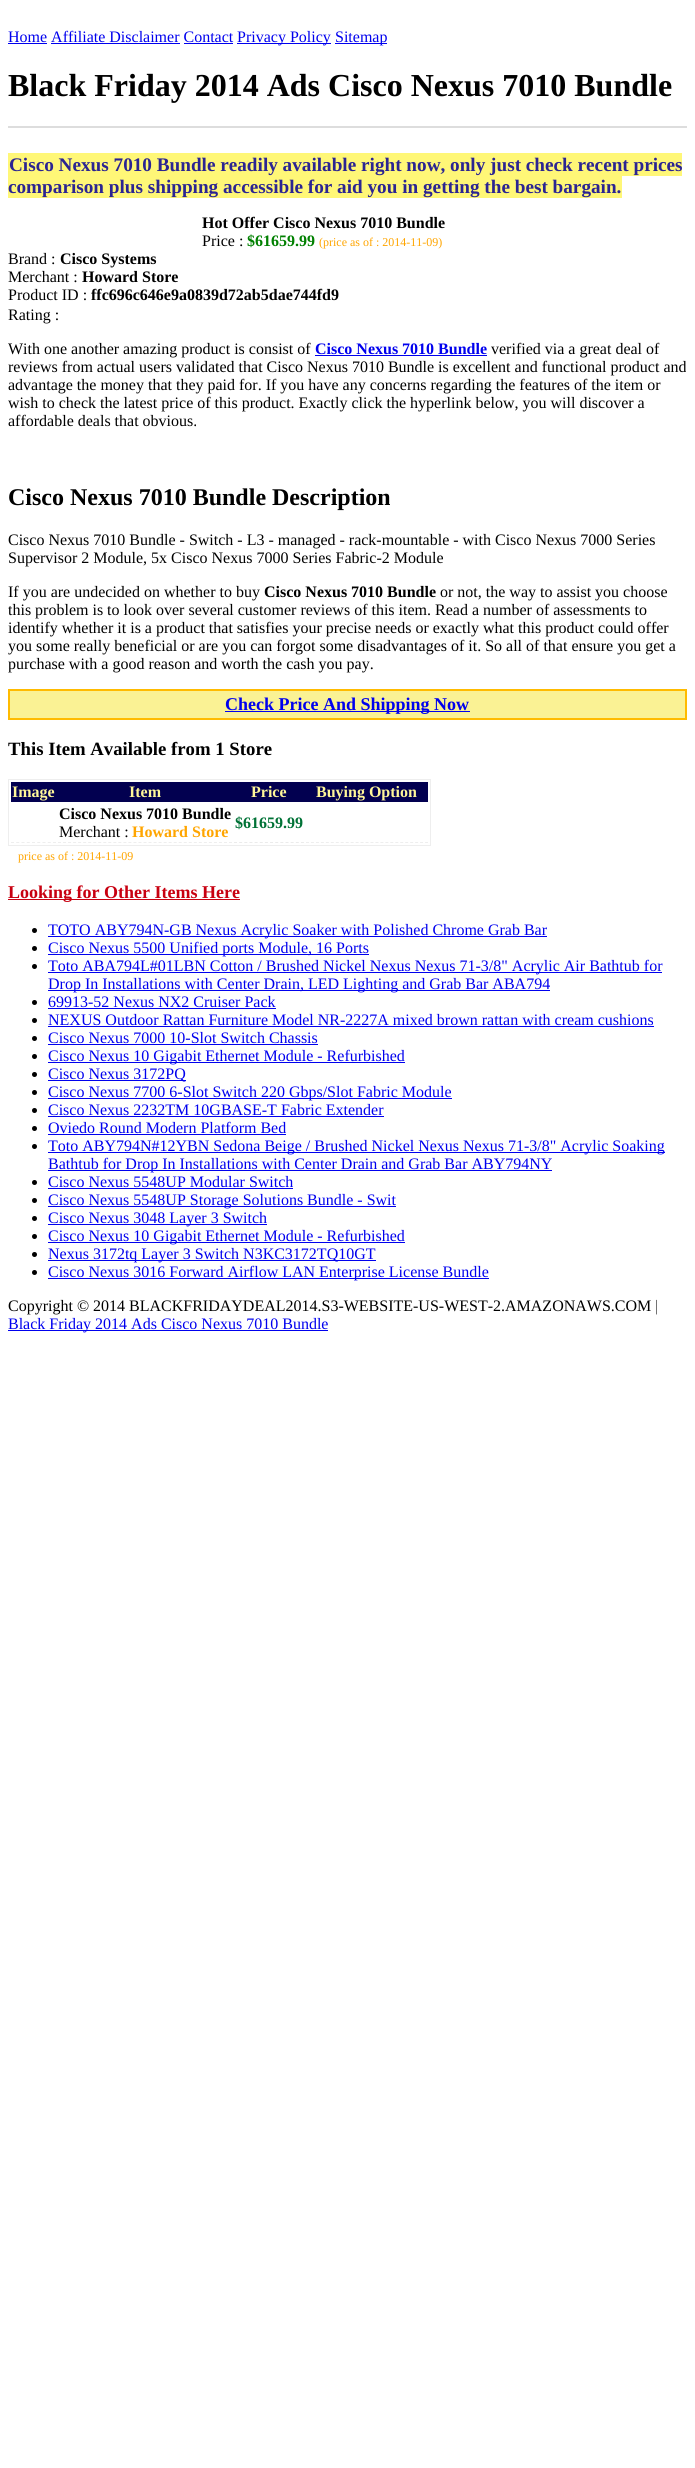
import math
import cairo

surface = cairo.ImageSurface(cairo.FORMAT_RGB24, 695, 2468)
cr = cairo.Context(surface)
options = cairo.FontOptions()
options.set_hint_metrics(cairo.HINT_METRICS_OFF)
options.set_hint_style(cairo.HINT_STYLE_NONE)
cr.set_font_options(options)
cr.set_miter_limit(4)


def rgb(code):
    cr.set_source_rgb(*(v / 255 for v in bytes.fromhex(code[-6:])))


rgb("#ffffff")
cr.paint()
for x, y, w, h, color in [
    (8, 43, 39, 1, "#0000ee"),
    (237, 43, 94, 1, "#0000ee"),
    (335, 43, 52, 1, "#0000ee"),
    (51, 43, 129, 1, "#0000ee"),
    (184, 43, 49, 1, "#0000ee"),
    (8, 126, 679, 2, "#dddddd"),
    (8, 153, 674, 23, "#fff777"),
    (8, 176, 614, 22, "#fff777"),
    (315, 355, 172, 1, "#0000ee"),
]:
    rgb(color)
    cr.rectangle(x, y, w, h)
    cr.fill()
rgb("#faf294")
cr.rectangle(9, 690, 677, 29)
cr.fill_preserve()
rgb("#ffbb00")
cr.stroke()
rgb("#0000ee")
cr.rectangle(225, 711, 245, 1)
cr.fill()
cr.rectangle(8.5, 779.5, 422, 66)
rgb("#eeeeee")
cr.set_line_width(1)
cr.stroke()
rgb("#020050")
cr.rectangle(11, 782, 417, 20)
cr.fill()
cr.new_path()
cr.move_to(58, 842.5)
cr.line_to(232, 842.5)
rgb("#eeeeee")
cr.set_dash([3, 2.03])
cr.stroke()
cr.new_path()
cr.move_to(234, 842.5)
cr.line_to(304, 842.5)
rgb("#ebebeb")
cr.set_dash([3, 2.15])
cr.stroke()
cr.new_path()
cr.move_to(11, 842.5)
cr.line_to(56, 842.5)
rgb("#eeeeee")
cr.set_dash([3, 2.25])
cr.stroke()
cr.new_path()
cr.move_to(306, 842.5)
cr.line_to(428, 842.5)
cr.set_dash([3, 1.96])
cr.stroke()
rgb("#c80010")
cr.rectangle(8, 899, 232, 1)
cr.fill()
rgb("#000000")
cr.arc(34.5, 930.5, 2.5, 0, 2 * math.pi)
cr.fill()
rgb("#0000ee")
cr.rectangle(48, 936, 499, 1)
cr.fill()
rgb("#000000")
cr.arc(34.5, 948.5, 2.5, 0, 2 * math.pi)
cr.fill()
rgb("#0000ee")
cr.rectangle(48, 954, 321, 1)
cr.fill()
rgb("#000000")
cr.arc(34.5, 966.5, 2.5, 0, 2 * math.pi)
cr.fill()
rgb("#0000ee")
cr.rectangle(48, 972, 614, 1)
cr.fill()
cr.rectangle(48, 990, 502, 1)
cr.fill()
rgb("#000000")
cr.arc(34.5, 1002.5, 2.5, 0, 2 * math.pi)
cr.fill()
rgb("#0000ee")
cr.rectangle(48, 1008, 228, 1)
cr.fill()
rgb("#000000")
cr.arc(34.5, 1020.5, 2.5, 0, 2 * math.pi)
cr.fill()
rgb("#0000ee")
cr.rectangle(48, 1026, 606, 1)
cr.fill()
rgb("#000000")
cr.arc(34.5, 1038.5, 2.5, 0, 2 * math.pi)
cr.fill()
rgb("#0000ee")
cr.rectangle(48, 1044, 270, 1)
cr.fill()
rgb("#000000")
cr.arc(34.5, 1056.5, 2.5, 0, 2 * math.pi)
cr.fill()
rgb("#0000ee")
cr.rectangle(48, 1062, 357, 1)
cr.fill()
rgb("#000000")
cr.arc(34.5, 1074.5, 2.5, 0, 2 * math.pi)
cr.fill()
rgb("#0000ee")
cr.rectangle(48, 1080, 138, 1)
cr.fill()
rgb("#000000")
cr.arc(34.5, 1092.5, 2.5, 0, 2 * math.pi)
cr.fill()
rgb("#0000ee")
cr.rectangle(48, 1098, 404, 1)
cr.fill()
rgb("#000000")
cr.arc(34.5, 1110.5, 2.5, 0, 2 * math.pi)
cr.fill()
rgb("#0000ee")
cr.rectangle(48, 1116, 336, 1)
cr.fill()
rgb("#000000")
cr.arc(34.5, 1128.5, 2.5, 0, 2 * math.pi)
cr.fill()
rgb("#0000ee")
cr.rectangle(48, 1134, 238, 1)
cr.fill()
rgb("#000000")
cr.arc(34.5, 1146.5, 2.5, 0, 2 * math.pi)
cr.fill()
rgb("#0000ee")
cr.rectangle(48, 1152, 617, 1)
cr.fill()
cr.rectangle(48, 1170, 504, 1)
cr.fill()
rgb("#000000")
cr.arc(34.5, 1182.5, 2.5, 0, 2 * math.pi)
cr.fill()
rgb("#0000ee")
cr.rectangle(48, 1188, 245, 1)
cr.fill()
rgb("#000000")
cr.arc(34.5, 1200.5, 2.5, 0, 2 * math.pi)
cr.fill()
rgb("#0000ee")
cr.rectangle(48, 1206, 348, 1)
cr.fill()
rgb("#000000")
cr.arc(34.5, 1218.5, 2.5, 0, 2 * math.pi)
cr.fill()
rgb("#0000ee")
cr.rectangle(48, 1224, 219, 1)
cr.fill()
rgb("#000000")
cr.arc(34.5, 1236.5, 2.5, 0, 2 * math.pi)
cr.fill()
rgb("#0000ee")
cr.rectangle(48, 1242, 357, 1)
cr.fill()
rgb("#000000")
cr.arc(34.5, 1254.5, 2.5, 0, 2 * math.pi)
cr.fill()
rgb("#0000ee")
cr.rectangle(48, 1260, 328, 1)
cr.fill()
rgb("#000000")
cr.arc(34.5, 1272.5, 2.5, 0, 2 * math.pi)
cr.fill()
rgb("#0000ee")
cr.rectangle(48, 1278, 441, 1)
cr.fill()
cr.rectangle(8, 1330, 320, 1)
cr.fill()
cr.select_font_face("Liberation Serif")
cr.set_font_size(16)
for x, y, s in [
    (8, 42, "Home Affiliate Disclaimer Contact"),
    (237, 42, "Privacy Policy"),
    (335, 42, "Sitemap"),
]:
    cr.move_to(x, y)
    cr.show_text(s)
cr.select_font_face("Liberation Serif", cairo.FONT_SLANT_NORMAL, cairo.FONT_WEIGHT_BOLD)
cr.set_font_size(32)
rgb("#000000")
cr.move_to(8, 96)
cr.show_text("Black Friday 2014 Ads Cisco Nexus 7010 Bundle")
cr.set_font_size(19.2)
rgb("#2b2492")
cr.move_to(9, 171)
cr.show_text("Cisco Nexus 7010 Bundle readily available right now, only just check recent prices")
cr.move_to(8, 193)
cr.show_text("comparison plus shipping accessible for aid you in getting the best bargain.")
cr.set_font_size(16)
rgb("#000000")
cr.move_to(202, 228)
cr.show_text("Hot Offer Cisco Nexus 7010 Bundle")
cr.select_font_face("Liberation Serif")
cr.move_to(202, 246)
cr.show_text("Price :")
cr.select_font_face("Liberation Serif", cairo.FONT_SLANT_NORMAL, cairo.FONT_WEIGHT_BOLD)
rgb("#008000")
cr.move_to(247, 246)
cr.show_text("$61659.99")
cr.select_font_face("Liberation Serif")
cr.set_font_size(12)
rgb("#ffa500")
cr.move_to(319, 246)
cr.show_text("(price as of : 2014-11-09)")
cr.set_font_size(16)
rgb("#000000")
cr.move_to(8, 264)
cr.show_text("Brand :")
cr.select_font_face("Liberation Serif", cairo.FONT_SLANT_NORMAL, cairo.FONT_WEIGHT_BOLD)
cr.move_to(60, 264)
cr.show_text("Cisco Systems")
cr.select_font_face("Liberation Serif")
cr.move_to(8, 282)
cr.show_text("Merchant :")
cr.select_font_face("Liberation Serif", cairo.FONT_SLANT_NORMAL, cairo.FONT_WEIGHT_BOLD)
cr.move_to(82, 282)
cr.show_text("Howard Store")
cr.select_font_face("Liberation Serif")
cr.move_to(8, 300)
cr.show_text("Product ID :")
cr.select_font_face("Liberation Serif", cairo.FONT_SLANT_NORMAL, cairo.FONT_WEIGHT_BOLD)
cr.move_to(91, 300)
cr.show_text("ffc696c646e9a0839d72ab5dae744fd9")
cr.select_font_face("Liberation Serif")
cr.move_to(8, 320)
cr.show_text("Rating :")
cr.move_to(8, 354)
cr.show_text("With one another amazing product is consist of")
cr.select_font_face("Liberation Serif", cairo.FONT_SLANT_NORMAL, cairo.FONT_WEIGHT_BOLD)
rgb("#0000ee")
cr.move_to(315, 354)
cr.show_text("Cisco Nexus 7010 Bundle")
cr.select_font_face("Liberation Serif")
rgb("#000000")
for x, y, s in [
    (491, 354, "verified via a great deal of"),
    (8, 372, "reviews from actual users validated that Cisco Nexus 7010 Bundle is excellent and functional product and"),
    (8, 390, "advantage the money that they paid for. If you have any concerns regarding the features of the item or"),
    (8, 408, "wish to check the latest price of this product. Exactly click the hyperlink below, you will discover a"),
    (8, 426, "affordable deals that obvious."),
]:
    cr.move_to(x, y)
    cr.show_text(s)
cr.select_font_face("Liberation Serif", cairo.FONT_SLANT_NORMAL, cairo.FONT_WEIGHT_BOLD)
cr.set_font_size(24)
cr.move_to(8, 505)
cr.show_text("Cisco Nexus 7010 Bundle Description")
cr.select_font_face("Liberation Serif")
cr.set_font_size(16)
for x, y, s in [
    (8, 545, "Cisco Nexus 7010 Bundle - Switch - L3 - managed - rack-mountable - with Cisco Nexus 7000 Series"),
    (8, 563, "Supervisor 2 Module, 5x Cisco Nexus 7000 Series Fabric-2 Module"),
    (8, 597, "If you are undecided on whether to buy"),
]:
    cr.move_to(x, y)
    cr.show_text(s)
cr.select_font_face("Liberation Serif", cairo.FONT_SLANT_NORMAL, cairo.FONT_WEIGHT_BOLD)
cr.move_to(264, 597)
cr.show_text("Cisco Nexus 7010 Bundle")
cr.select_font_face("Liberation Serif")
for x, y, s in [
    (440, 597, "or not, the way to assist you choose"),
    (8, 615, "this problem is to look over several customer reviews of this item. Read a number of assessments to"),
    (8, 633, "identify whether it is a product that satisfies your precise needs or exactly what this product could offer"),
    (8, 651, "you some really beneficial or are you can forgot some disadvantages of it. So all of that ensure you get a"),
    (8, 669, "purchase with a good reason and worth the cash you pay."),
]:
    cr.move_to(x, y)
    cr.show_text(s)
cr.select_font_face("Liberation Serif", cairo.FONT_SLANT_NORMAL, cairo.FONT_WEIGHT_BOLD)
cr.set_font_size(18)
rgb("#0000ee")
cr.move_to(225, 710)
cr.show_text("Check Price And Shipping Now")
cr.set_font_size(18.75)
rgb("#000000")
cr.move_to(8, 755)
cr.show_text("This Item Available from 1 Store")
cr.set_font_size(16)
rgb("#fff799")
for x, y, s in [
    (12, 797, "Image"),
    (129, 797, "Item"),
    (251, 797, "Price"),
    (316, 797, "Buying Option"),
]:
    cr.move_to(x, y)
    cr.show_text(s)
rgb("#000000")
cr.move_to(59, 819)
cr.show_text("Cisco Nexus 7010 Bundle")
cr.select_font_face("Liberation Serif")
cr.move_to(59, 837)
cr.show_text("Merchant :")
cr.select_font_face("Liberation Serif", cairo.FONT_SLANT_NORMAL, cairo.FONT_WEIGHT_BOLD)
rgb("#ffa500")
cr.move_to(132, 837)
cr.show_text("Howard Store")
rgb("#007236")
cr.move_to(235, 828)
cr.show_text("$61659.99")
cr.select_font_face("Liberation Serif")
cr.set_font_size(12)
rgb("#ffa500")
cr.move_to(18, 860)
cr.show_text("price as of : 2014-11-09")
cr.select_font_face("Liberation Serif", cairo.FONT_SLANT_NORMAL, cairo.FONT_WEIGHT_BOLD)
cr.set_font_size(18)
rgb("#c80010")
cr.move_to(8, 898)
cr.show_text("Looking for Other Items Here")
cr.select_font_face("Liberation Serif")
cr.set_font_size(16)
rgb("#0000ee")
for x, y, s in [
    (48, 935, "TOTO ABY794N-GB Nexus Acrylic Soaker with Polished Chrome Grab Bar"),
    (48, 953, "Cisco Nexus 5500 Unified ports Module, 16 Ports"),
    (48, 971, "Toto ABA794L#01LBN Cotton / Brushed Nickel Nexus Nexus 71-3/8\" Acrylic Air Bathtub for"),
    (48, 989, "Drop In Installations with Center Drain, LED Lighting and Grab Bar ABA794"),
    (48, 1007, "69913-52 Nexus NX2 Cruiser Pack"),
    (48, 1025, "NEXUS Outdoor Rattan Furniture Model NR-2227A mixed brown rattan with cream cushions"),
    (48, 1043, "Cisco Nexus 7000 10-Slot Switch Chassis"),
    (48, 1061, "Cisco Nexus 10 Gigabit Ethernet Module - Refurbished"),
    (48, 1079, "Cisco Nexus 3172PQ"),
    (48, 1097, "Cisco Nexus 7700 6-Slot Switch 220 Gbps/Slot Fabric Module"),
    (48, 1115, "Cisco Nexus 2232TM 10GBASE-T Fabric Extender"),
    (48, 1133, "Oviedo Round Modern Platform Bed"),
    (48, 1151, "Toto ABY794N#12YBN Sedona Beige / Brushed Nickel Nexus Nexus 71-3/8\" Acrylic Soaking"),
    (48, 1169, "Bathtub for Drop In Installations with Center Drain and Grab Bar ABY794NY"),
    (48, 1187, "Cisco Nexus 5548UP Modular Switch"),
    (48, 1205, "Cisco Nexus 5548UP Storage Solutions Bundle - Swit"),
    (48, 1223, "Cisco Nexus 3048 Layer 3 Switch"),
    (48, 1241, "Cisco Nexus 10 Gigabit Ethernet Module - Refurbished"),
    (48, 1259, "Nexus 3172tq Layer 3 Switch N3KC3172TQ10GT"),
    (48, 1277, "Cisco Nexus 3016 Forward Airflow LAN Enterprise License Bundle"),
]:
    cr.move_to(x, y)
    cr.show_text(s)
rgb("#000000")
cr.move_to(8, 1311)
cr.show_text("Copyright © 2014 BLACKFRIDAYDEAL2014.S3-WEBSITE-US-WEST-2.AMAZONAWS.COM |")
rgb("#0000ee")
cr.move_to(8, 1329)
cr.show_text("Black Friday 2014 Ads Cisco Nexus 7010 Bundle")
surface.write_to_png("page.png")
